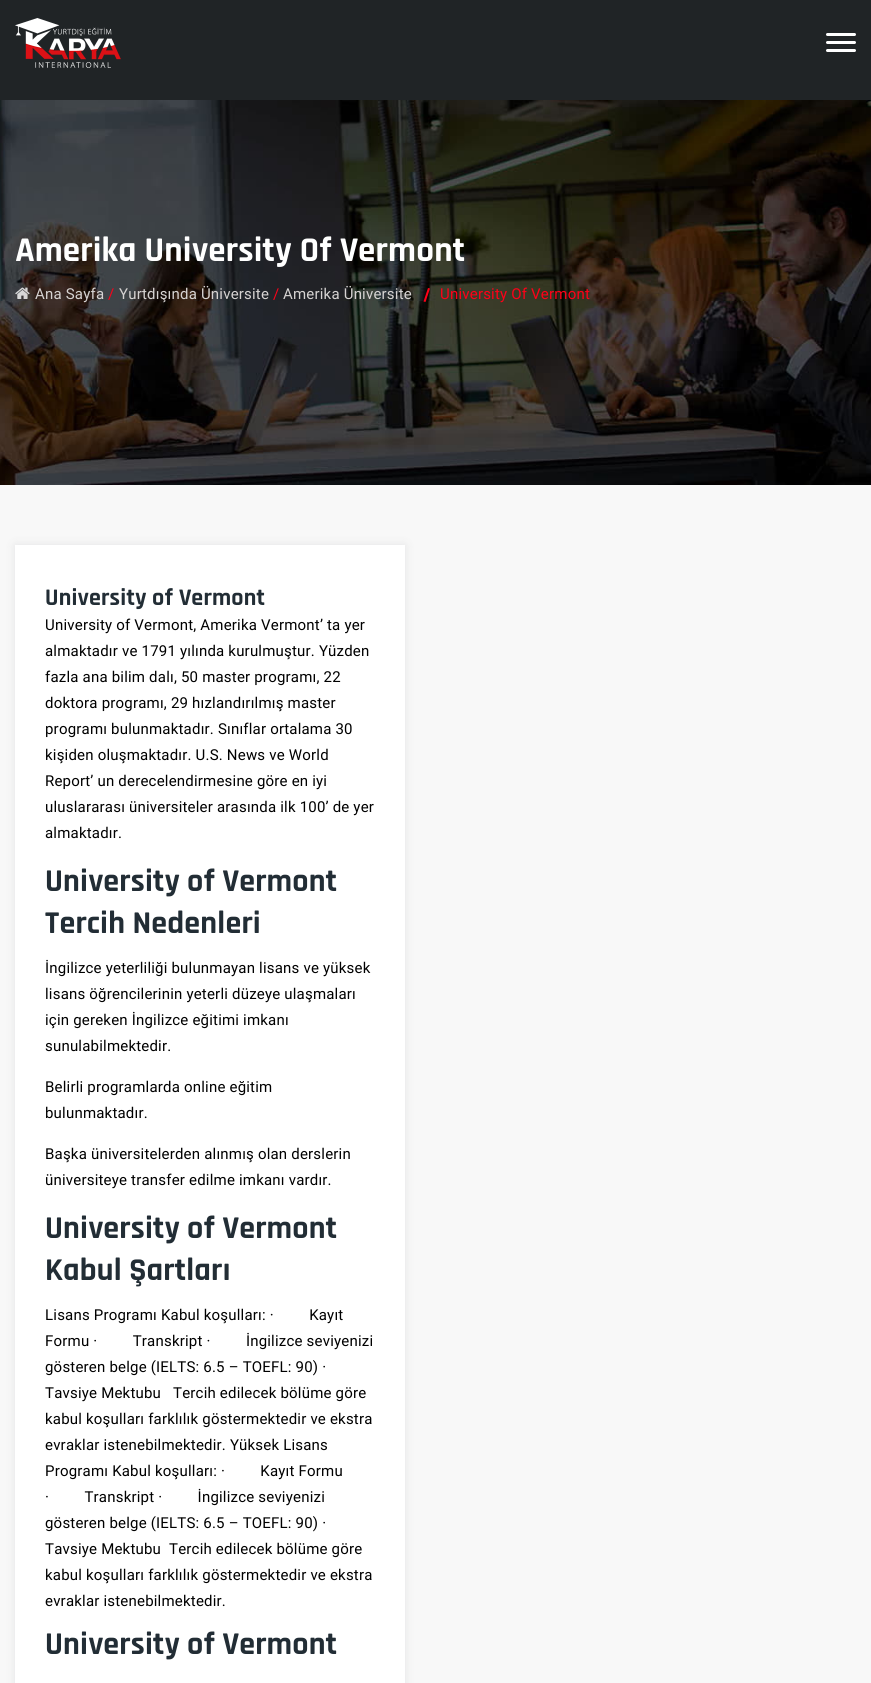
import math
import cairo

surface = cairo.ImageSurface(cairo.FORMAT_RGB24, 871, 1683)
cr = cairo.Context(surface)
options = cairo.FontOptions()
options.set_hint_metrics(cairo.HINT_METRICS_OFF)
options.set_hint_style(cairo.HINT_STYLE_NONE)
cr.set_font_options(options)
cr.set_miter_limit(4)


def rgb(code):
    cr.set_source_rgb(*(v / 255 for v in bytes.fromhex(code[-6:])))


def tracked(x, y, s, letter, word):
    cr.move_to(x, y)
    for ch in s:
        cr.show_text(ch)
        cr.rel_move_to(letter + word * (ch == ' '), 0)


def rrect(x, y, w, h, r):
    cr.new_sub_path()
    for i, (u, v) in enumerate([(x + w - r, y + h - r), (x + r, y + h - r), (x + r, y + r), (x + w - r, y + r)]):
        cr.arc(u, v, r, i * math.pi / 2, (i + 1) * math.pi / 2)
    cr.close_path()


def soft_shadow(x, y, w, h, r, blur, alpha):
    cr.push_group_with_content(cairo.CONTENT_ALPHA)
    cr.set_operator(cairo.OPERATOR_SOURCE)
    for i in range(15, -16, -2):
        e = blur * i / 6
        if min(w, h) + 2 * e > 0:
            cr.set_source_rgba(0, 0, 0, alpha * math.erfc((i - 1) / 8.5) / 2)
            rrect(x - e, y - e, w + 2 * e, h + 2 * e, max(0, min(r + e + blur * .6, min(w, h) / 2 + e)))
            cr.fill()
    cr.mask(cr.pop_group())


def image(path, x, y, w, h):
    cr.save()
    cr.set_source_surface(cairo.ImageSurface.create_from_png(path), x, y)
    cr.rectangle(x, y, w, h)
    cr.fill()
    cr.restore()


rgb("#202426")
cr.paint()
image("img/1.png", 15, 18, 106, 50)
rgb("#ffffff")
rrect(826, 41, 30, 3, 1.5)
cr.fill()
rrect(826, 33, 30, 3, 1.5)
cr.fill()
rrect(826, 49, 30, 3, 1.5)
cr.fill()
image("img/2.png", 0, 100, 871, 385)
image("img/3.png", 15, 287, 15, 12)
rgb("#ff0018")
cr.new_path()
cr.move_to(428, 288)
cr.line_to(430, 288.5)
cr.line_to(425.5, 302)
cr.line_to(423.5, 301.5)
cr.close_path()
cr.fill()
rgb("#f8f8f8")
cr.rectangle(0, 485, 871, 1198)
cr.fill()
rgb("#2b343b")
soft_shadow(15, 545, 390, 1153, 0, 5, 0.1)
rgb("#ffffff")
cr.rectangle(15, 545, 390, 1138)
cr.fill()
cr.select_font_face("Rajdhani", cairo.FONT_SLANT_NORMAL, cairo.FONT_WEIGHT_BOLD)
cr.set_font_size(35)
tracked(15, 261, "Amerika University Of Vermont", 0.2, 0)
cr.select_font_face("Roboto")
cr.set_font_size(15)
rgb("#d6d3d2")
tracked(35, 299, "Ana Sayfa", 0.2, 0)
rgb("#ff0018")
tracked(108, 299, "/", 0.2, 0)
rgb("#d6d3d2")
tracked(119, 299, "Yurtdışında Üniversite", 0.2, 0)
rgb("#ff0018")
tracked(273, 299, "/", 0.2, 0)
rgb("#d6d3d2")
tracked(283, 299, "Amerika Üniversite", 0.2, 0)
rgb("#ff0018")
tracked(440, 299, "University Of Vermont", 0.2, 0)
cr.select_font_face("Rajdhani", cairo.FONT_SLANT_NORMAL, cairo.FONT_WEIGHT_BOLD)
cr.set_font_size(24)
rgb("#222d35")
tracked(45, 605, "University of Vermont", 0.2, 0)
cr.select_font_face("Roboto")
cr.set_font_size(15)
rgb("#000000")
for x, y, s in [
    (45, 630, "University of Vermont, Amerika Vermont’ ta yer"),
    (45, 656, "almaktadır ve 1791 yılında kurulmuştur. Yüzden"),
    (45, 682, "fazla ana bilim dalı, 50 master programı, 22"),
    (45, 708, "doktora programı, 29 hızlandırılmış master"),
    (45, 734, "programı bulunmaktadır. Sınıflar ortalama 30"),
    (45, 760, "kişiden oluşmaktadır. U.S. News ve World"),
    (45, 786, "Report’ un derecelendirmesine göre en iyi"),
    (45, 812, "uluslararası üniversiteler arasında ilk 100’ de yer"),
    (45, 838, "almaktadır."),
]:
    tracked(x, y, s, 0.2, 0)
cr.select_font_face("Rajdhani", cairo.FONT_SLANT_NORMAL, cairo.FONT_WEIGHT_BOLD)
cr.set_font_size(32)
rgb("#222d35")
tracked(45, 891, "University of Vermont", 0.2, 0)
tracked(45, 933, "Tercih Nedenleri", 0.2, 0)
cr.select_font_face("Roboto")
cr.set_font_size(15)
rgb("#000000")
for x, y, s in [
    (45, 973, "İngilizce yeterliliği bulunmayan lisans ve yüksek"),
    (45, 999, "lisans öğrencilerinin yeterli düzeye ulaşmaları"),
    (45, 1025, "için gereken İngilizce eğitimi imkanı"),
    (45, 1051, "sunulabilmektedir."),
    (45, 1092, "Belirli programlarda online eğitim"),
    (45, 1118, "bulunmaktadır."),
    (45, 1159, "Başka üniversitelerden alınmış olan derslerin"),
    (45, 1185, "üniversiteye transfer edilme imkanı vardır."),
]:
    tracked(x, y, s, 0.2, 0)
cr.select_font_face("Rajdhani", cairo.FONT_SLANT_NORMAL, cairo.FONT_WEIGHT_BOLD)
cr.set_font_size(32)
rgb("#222d35")
tracked(45, 1238, "University of Vermont", 0.2, 0)
tracked(45, 1280, "Kabul Şartları", 0.2, 0)
cr.select_font_face("Roboto")
cr.set_font_size(15)
rgb("#000000")
for x, y, s in [
    (45, 1320, "Lisans Programı Kabul koşulları: ·         Kayıt"),
    (45, 1346, "Formu ·         Transkript ·         İngilizce seviyenizi"),
    (45, 1372, "gösteren belge (IELTS: 6.5 – TOEFL: 90) ·"),
    (45, 1398, "Tavsiye Mektubu"),
    (173, 1398, "Tercih edilecek bölüme göre"),
    (45, 1424, "kabul koşulları farklılık göstermektedir ve ekstra"),
    (45, 1450, "evraklar istenebilmektedir. Yüksek Lisans"),
    (45, 1476, "Programı Kabul koşulları: ·         Kayıt Formu"),
    (45, 1502, "·         Transkript ·         İngilizce seviyenizi"),
    (45, 1528, "gösteren belge (IELTS: 6.5 – TOEFL: 90) ·"),
    (45, 1554, "Tavsiye Mektubu"),
    (169, 1554, "Tercih edilecek bölüme göre"),
    (45, 1580, "kabul koşulları farklılık göstermektedir ve ekstra"),
    (45, 1606, "evraklar istenebilmektedir."),
]:
    tracked(x, y, s, 0.2, 0)
cr.select_font_face("Rajdhani", cairo.FONT_SLANT_NORMAL, cairo.FONT_WEIGHT_BOLD)
cr.set_font_size(32)
rgb("#222d35")
tracked(45, 1654, "University of Vermont", 0.2, 0)
surface.write_to_png("page.png")
